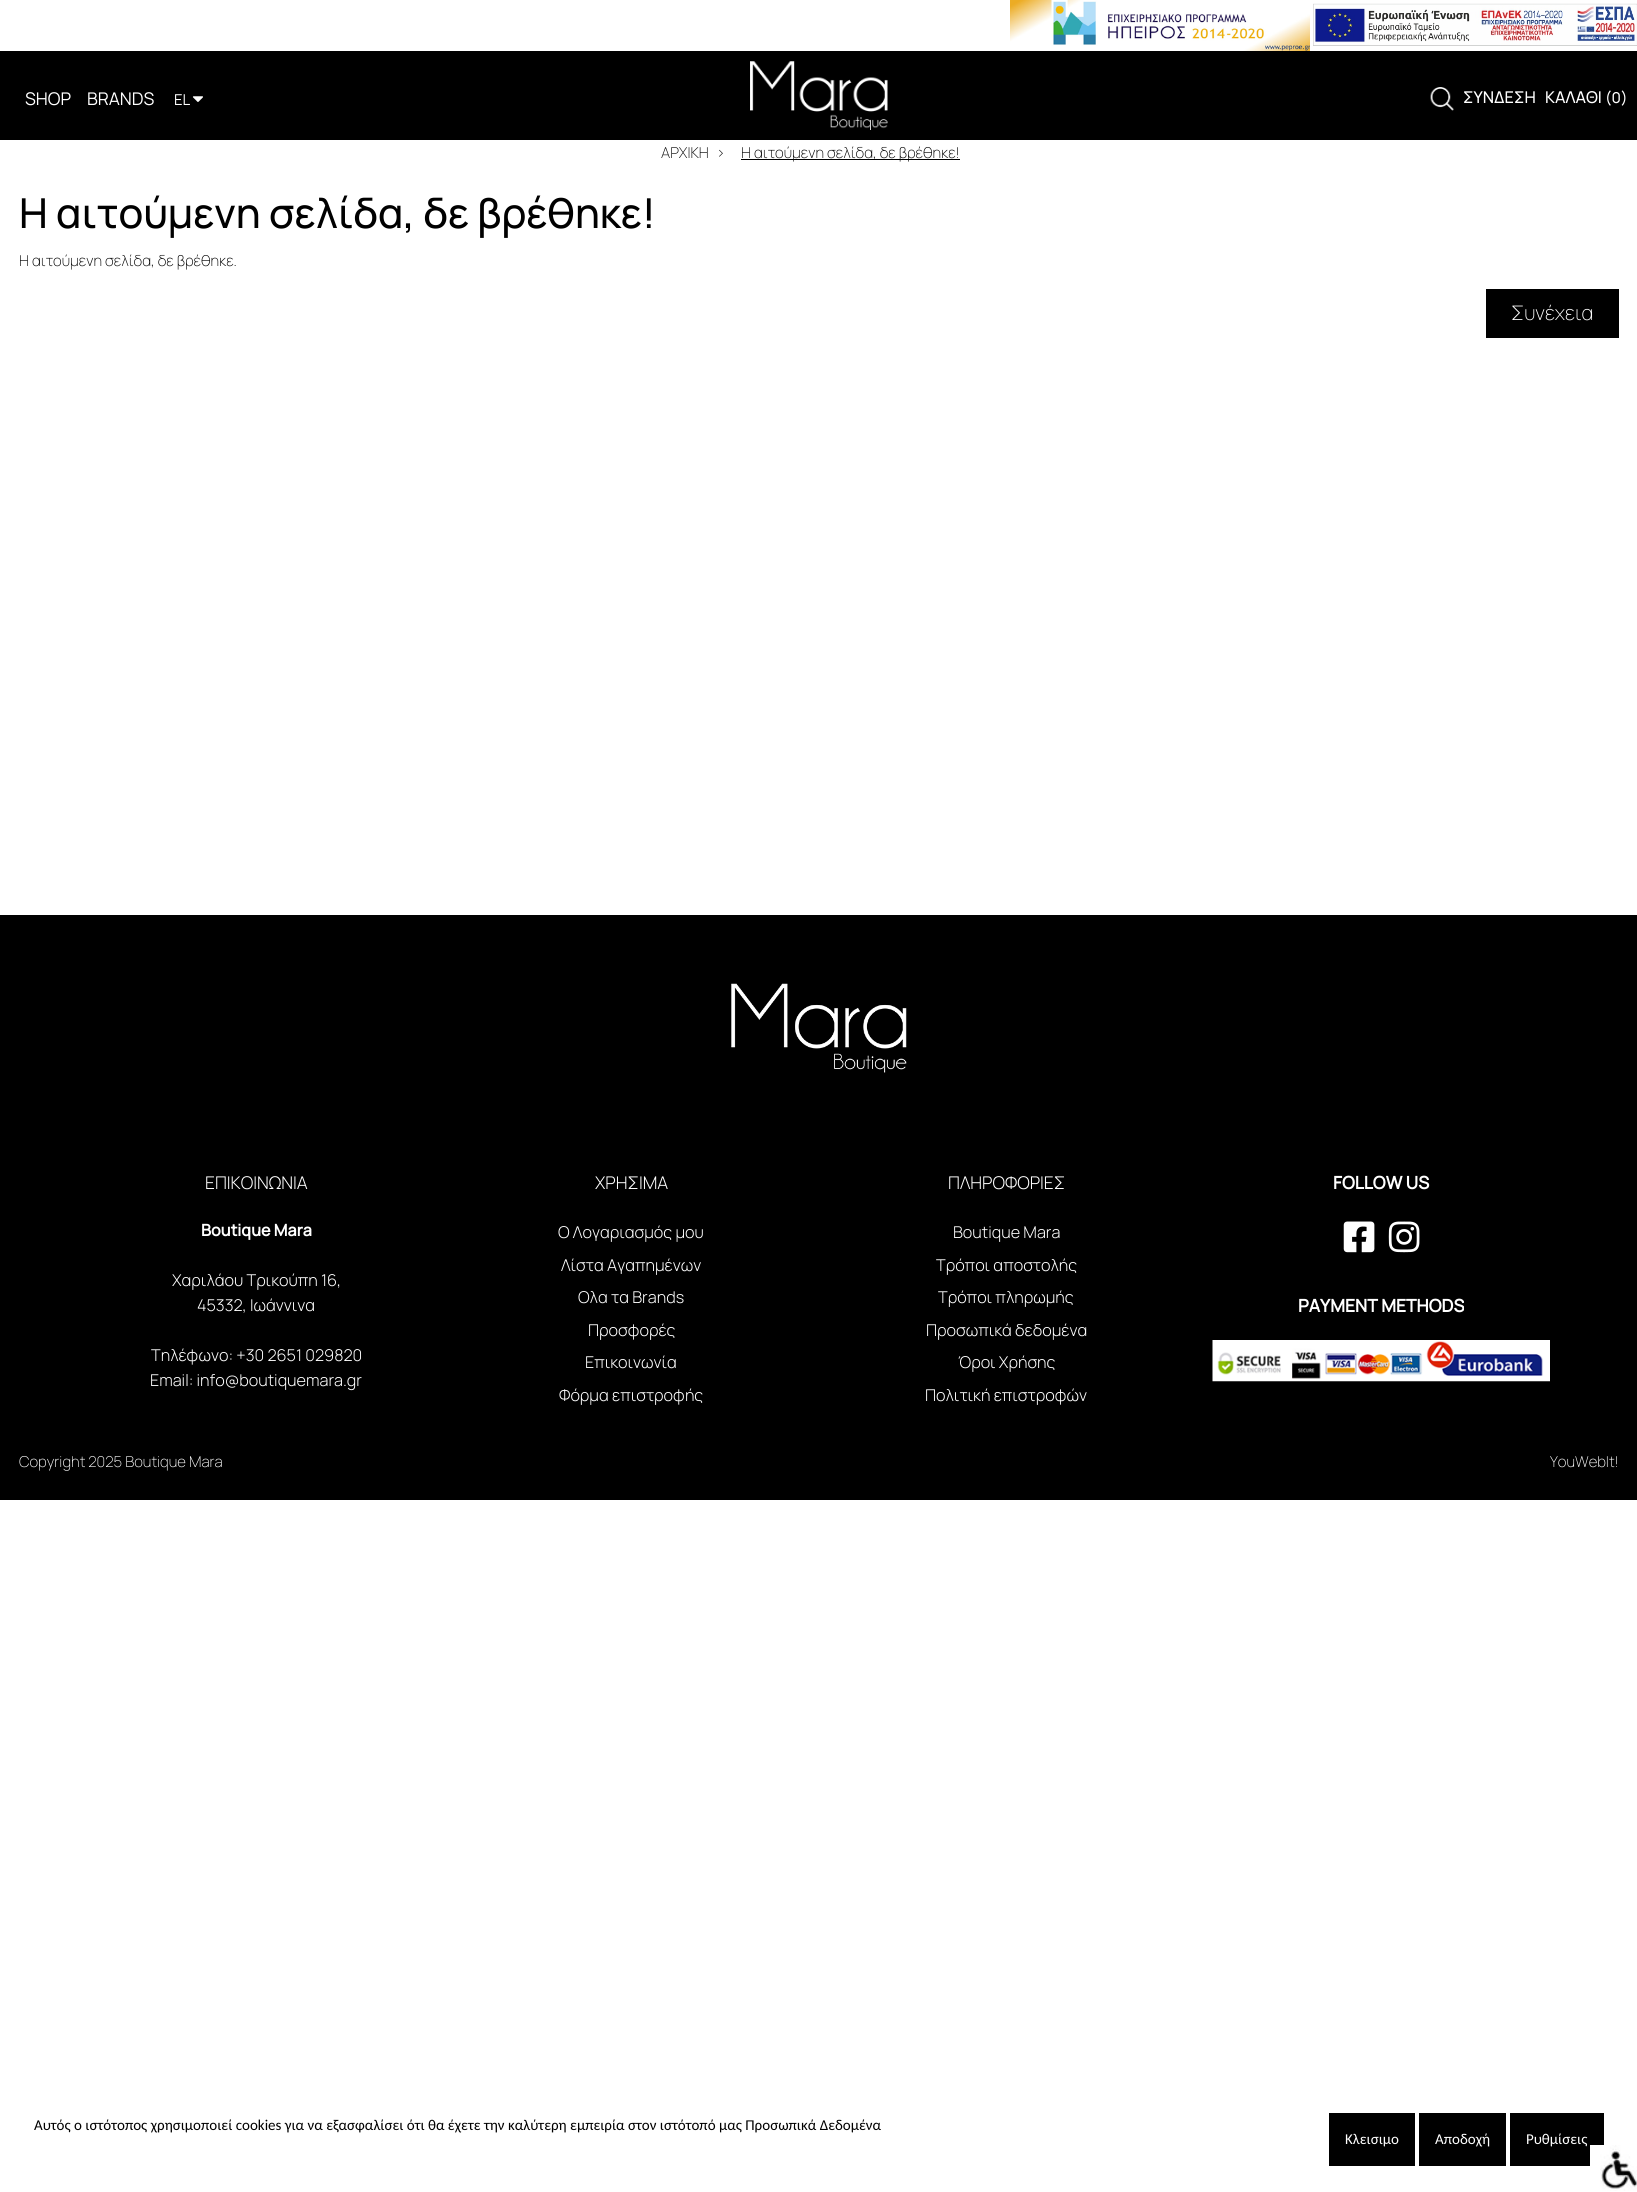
import math
import cairo

surface = cairo.ImageSurface(cairo.FORMAT_RGB24, 1637, 2192)
cr = cairo.Context(surface)
options = cairo.FontOptions()
options.set_hint_metrics(cairo.HINT_METRICS_OFF)
options.set_hint_style(cairo.HINT_STYLE_NONE)
cr.set_font_options(options)
cr.set_miter_limit(4)


def rgb(code):
    cr.set_source_rgb(*(v / 255 for v in bytes.fromhex(code[-6:])))


def image(path, x, y, w, h):
    cr.save()
    cr.set_source_surface(cairo.ImageSurface.create_from_png(path), x, y)
    cr.rectangle(x, y, w, h)
    cr.fill()
    cr.restore()


rgb("#ffffff")
cr.paint()
image("img/1.png", 1010, 0, 300, 51)
image("img/2.png", 1313, 3, 324, 43)
rgb("#000000")
cr.rectangle(0, 51, 1637, 89)
cr.fill()
image("img/3.png", 192, 96, 11, 6)
image("img/4.png", 750, 61, 138, 69)
image("img/5.png", 1430, 87, 24, 24)
for x, y, w, h, color in [
    (741, 159, 219, 1, "#000000"),
    (1486, 289, 133, 49, "#000000"),
    (0, 915, 1637, 510, "#000000"),
]:
    rgb(color)
    cr.rectangle(x, y, w, h)
    cr.fill()
image("img/6.png", 731, 983, 176, 90)
image("img/7.png", 1343, 1221, 32, 32)
image("img/8.png", 1388, 1221, 32, 32)
image("img/9.png", 1212, 1340, 338, 42)
for x, y, w, h, color in [
    (0, 1425, 1637, 75, "#000000"),
    (1329, 2113, 86, 53, "#000000"),
    (1419, 2113, 87, 53, "#000000"),
    (1510, 2113, 94, 53, "#000000"),
    (1590, 2145, 14, 21, "#ffffff"),
]:
    rgb(color)
    cr.rectangle(x, y, w, h)
    cr.fill()
image("img/10.png", 1600, 2145, 37, 46)
cr.select_font_face("Manrope")
cr.set_font_size(17.5)
cr.move_to(25, 105)
cr.show_text("SHOP")
cr.move_to(87, 105)
cr.show_text("BRANDS")
cr.set_font_size(15)
cr.move_to(174, 105)
cr.show_text("EL")
cr.select_font_face("Manrope Medium")
cr.set_font_size(16.25)
cr.move_to(1463, 103)
cr.show_text("ΣΥΝΔΕΣΗ")
cr.move_to(1545, 103)
cr.show_text("ΚΑΛΑΘΙ")
cr.set_font_size(15)
cr.move_to(1605, 103)
cr.show_text("(0)")
cr.select_font_face("Manrope ExtraLight")
rgb("#000000")
for x, y, s in [
    (661, 158, "ΑΡΧΙΚΗ"),
    (716, 158, ">"),
    (741, 158, "Η αιτούμενη σελίδα, δε βρέθηκε!"),
]:
    cr.move_to(x, y)
    cr.show_text(s)
cr.select_font_face("Manrope Medium")
cr.set_font_size(41.25)
cr.move_to(19, 228)
cr.show_text("Η αιτούμενη σελίδα, δε βρέθηκε!")
cr.select_font_face("Manrope ExtraLight")
cr.set_font_size(15)
cr.move_to(19, 266)
cr.show_text("Η αιτούμενη σελίδα, δε βρέθηκε.")
cr.set_font_size(20)
rgb("#ffffff")
cr.move_to(1511, 320)
cr.show_text("Συνέχεια")
cr.select_font_face("Manrope Light")
cr.set_font_size(17.5)
cr.move_to(205, 1189)
cr.show_text("ΕΠΙΚΟΙΝΩΝΙΑ")
cr.select_font_face("Manrope", cairo.FONT_SLANT_NORMAL, cairo.FONT_WEIGHT_BOLD)
cr.set_font_size(16.25)
cr.move_to(201, 1236)
cr.show_text("Boutique Mara")
cr.select_font_face("Manrope Light")
for x, y, s in [
    (172, 1286, "Xαριλάου Τρικούπη 16,"),
    (197, 1311, "45332, Ιωάννινα"),
    (151, 1361, "Τηλέφωνο: +30 2651 029820"),
    (150, 1386, "Email: info@boutiquemara.gr"),
]:
    cr.move_to(x, y)
    cr.show_text(s)
cr.set_font_size(17.5)
cr.move_to(595, 1189)
cr.show_text("ΧΡΗΣΙΜΑ")
cr.set_font_size(16.25)
for x, y, s in [
    (558, 1238, "Ο Λογαριασμός μου"),
    (561, 1271, "Λίστα Αγαπημένων"),
    (578, 1303, "Ολα τα Brands"),
    (588, 1336, "Προσφορές"),
    (585, 1368, "Επικοινωνία"),
    (559, 1401, "Φόρμα επιστροφής"),
]:
    cr.move_to(x, y)
    cr.show_text(s)
cr.set_font_size(17.5)
cr.move_to(948, 1189)
cr.show_text("ΠΛΗΡΟΦΟΡΙΕΣ")
cr.set_font_size(16.25)
for x, y, s in [
    (953, 1238, "Boutique Mara"),
    (936, 1271, "Τρόποι αποστολής"),
    (938, 1303, "Τρόποι πληρωμής"),
    (926, 1336, "Προσωπικά δεδομένα"),
    (958, 1368, "Όροι Χρήσης"),
    (925, 1401, "Πολιτική επιστροφών"),
]:
    cr.move_to(x, y)
    cr.show_text(s)
cr.select_font_face("Manrope", cairo.FONT_SLANT_NORMAL, cairo.FONT_WEIGHT_BOLD)
cr.set_font_size(17.5)
cr.move_to(1333, 1189)
cr.show_text("FOLLOW US")
cr.move_to(1298, 1312)
cr.show_text("PAYMENT METHODS")
cr.select_font_face("Manrope ExtraLight")
cr.set_font_size(15)
cr.move_to(19, 1467)
cr.show_text("Copyright 2025 Boutique Mara")
cr.move_to(1550, 1467)
cr.show_text("YouWebIt!")
cr.select_font_face("Carlito")
rgb("#000000")
cr.move_to(34, 2130)
cr.show_text("Αυτός ο ιστότοπος χρησιμοποιεί cookies για να εξασφαλίσει ότι θα έχετε την καλύτερη εμπειρία στον ιστότοπό μας Προσωπικά Δεδομένα")
rgb("#ffffff")
for x, y, s in [
    (1345, 2144, "Κλεισιμο"),
    (1435, 2144, "Αποδοχή"),
    (1526, 2144, "Ρυθμίσεις"),
]:
    cr.move_to(x, y)
    cr.show_text(s)
surface.write_to_png("page.png")
